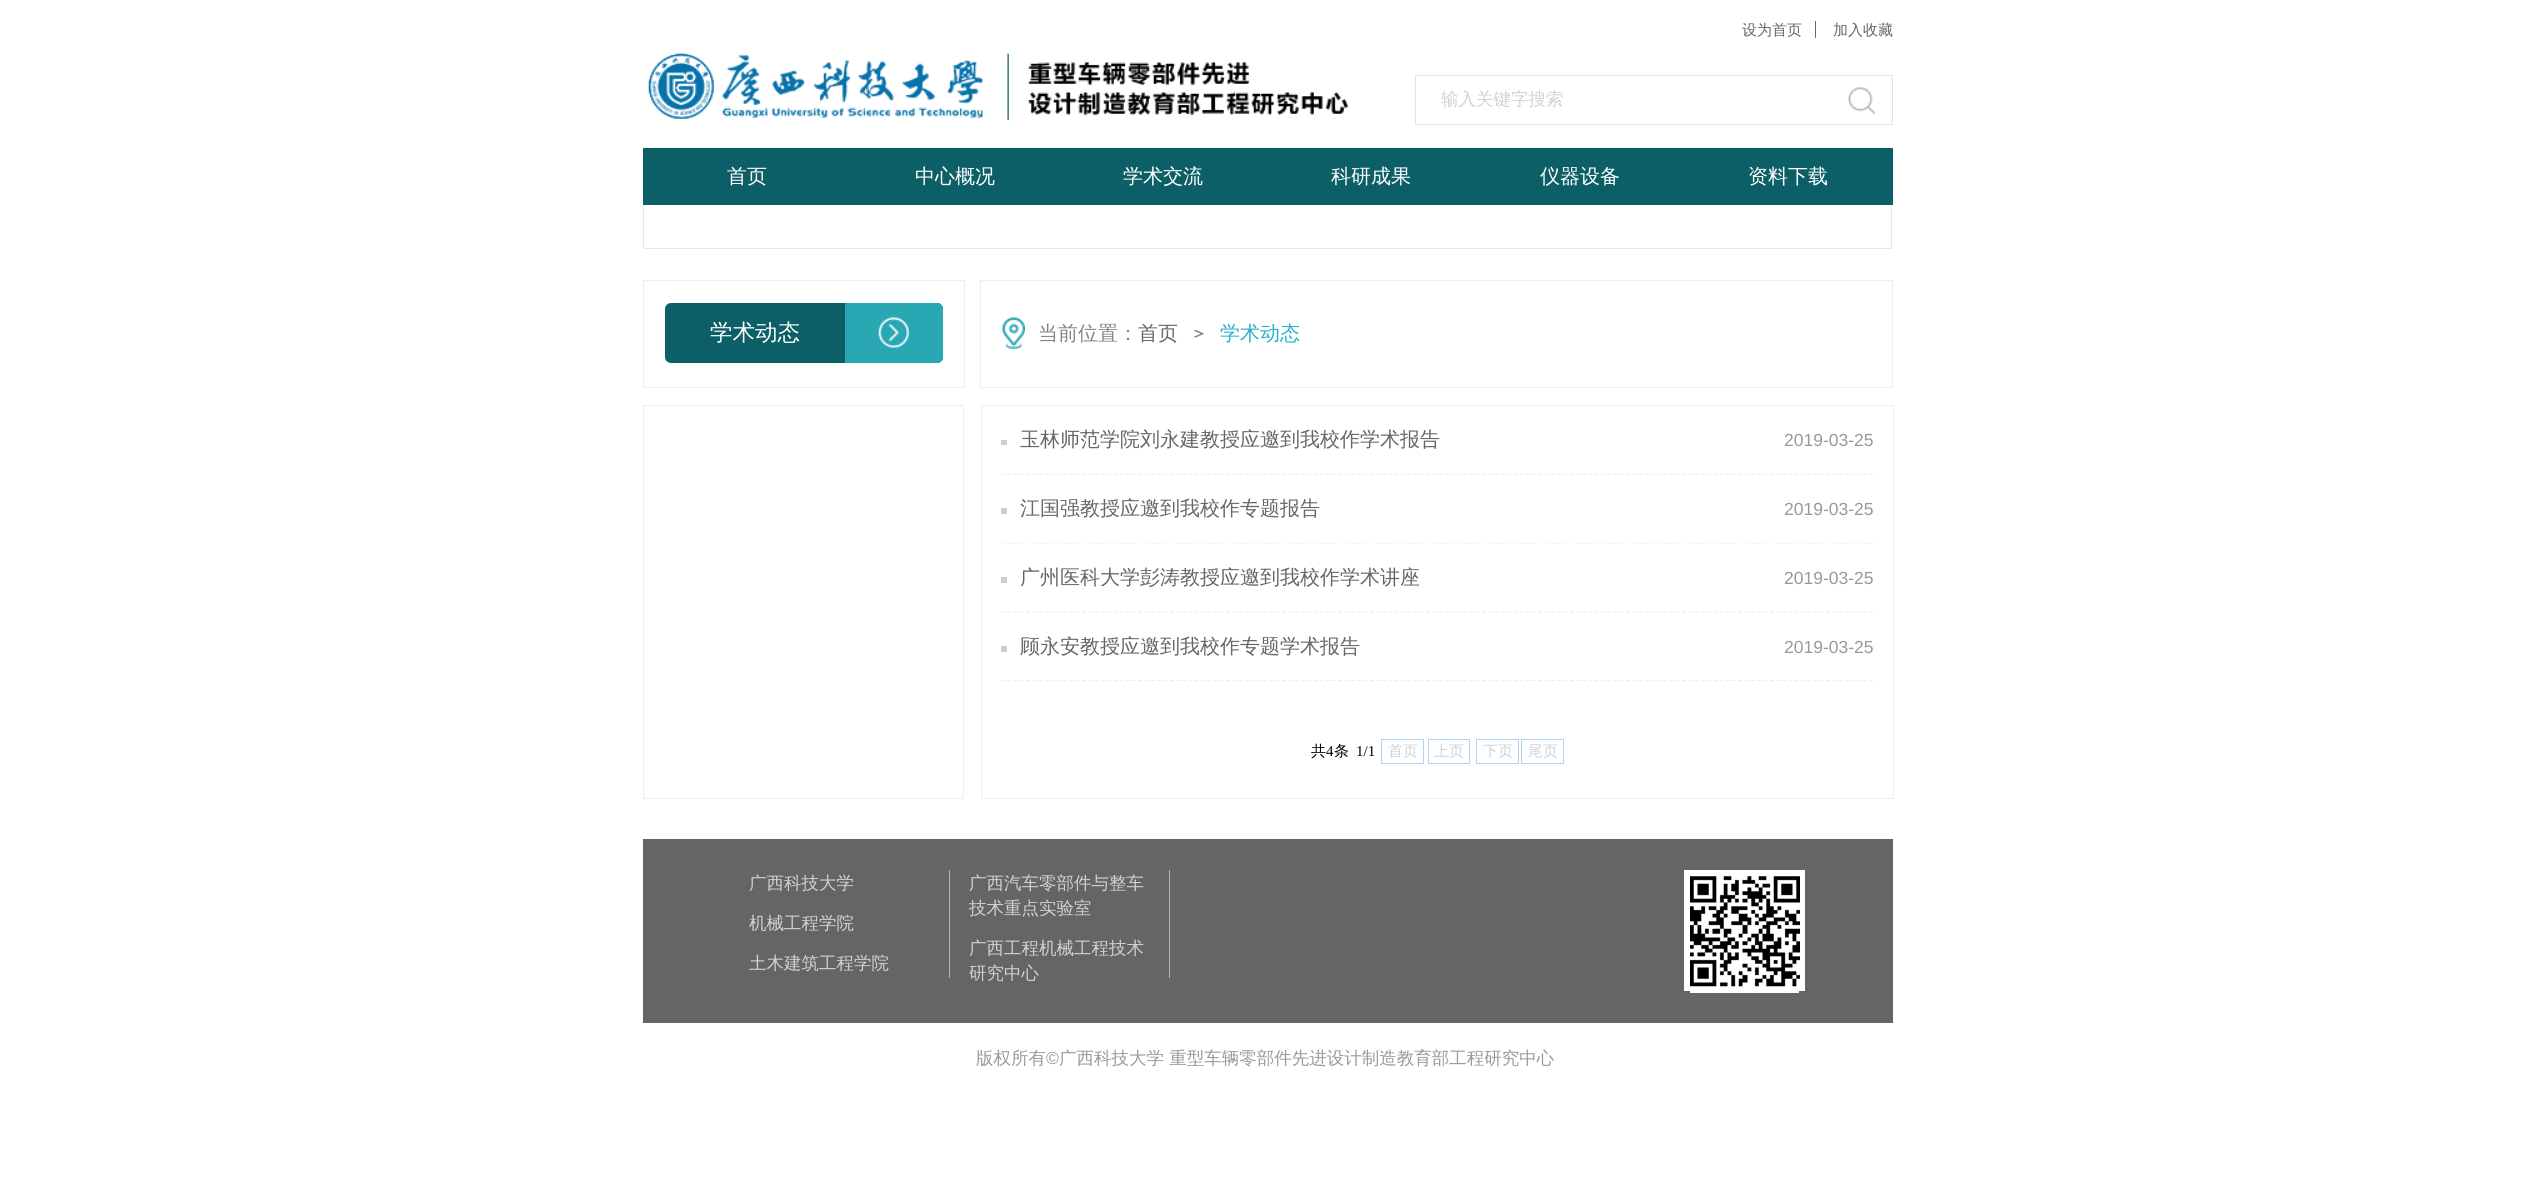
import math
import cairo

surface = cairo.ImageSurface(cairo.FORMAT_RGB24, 2534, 1201)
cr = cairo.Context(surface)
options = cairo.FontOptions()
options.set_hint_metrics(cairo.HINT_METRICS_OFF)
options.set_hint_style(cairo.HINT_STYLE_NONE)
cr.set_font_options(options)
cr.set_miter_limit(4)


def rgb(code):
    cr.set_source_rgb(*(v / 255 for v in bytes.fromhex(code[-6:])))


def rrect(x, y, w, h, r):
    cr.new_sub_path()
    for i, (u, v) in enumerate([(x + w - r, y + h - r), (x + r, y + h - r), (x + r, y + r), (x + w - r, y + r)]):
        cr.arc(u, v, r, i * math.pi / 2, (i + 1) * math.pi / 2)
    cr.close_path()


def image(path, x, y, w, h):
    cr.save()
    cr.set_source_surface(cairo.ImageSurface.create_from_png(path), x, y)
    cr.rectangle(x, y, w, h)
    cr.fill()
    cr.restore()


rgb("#ffffff")
cr.paint()
image("img/1.png", 648, 53, 701, 68)
rgb("#666666")
cr.rectangle(1815, 21, 1, 17)
cr.fill()
cr.rectangle(1415.5, 75.5, 477, 49)
rgb("#e5e5e5")
cr.set_line_width(1)
cr.stroke()
image("img/2.png", 1848, 87, 27, 27)
for x, y, w, h, color in [
    (643, 148, 1250, 57, "#0c5f67"),
    (1891, 205, 1, 44, "#e8e8e8"),
    (643, 248, 1250, 1, "#e8e8e8"),
    (643, 205, 1, 44, "#e8e8e8"),
]:
    rgb(color)
    cr.rectangle(x, y, w, h)
    cr.fill()
cr.rectangle(643.5, 280.5, 321, 107)
rgb("#eeeeee")
cr.stroke()
rgb("#0c5f67")
rrect(665, 303, 278, 60, 6)
cr.fill()
rgb("#29a7b3")
cr.new_path()
cr.move_to(845, 303)
cr.line_to(937, 303)
cr.curve_to(940.5, 303, 943, 305.5, 943, 309)
cr.line_to(943, 357)
cr.curve_to(943, 360.5, 940.5, 363, 937, 363)
cr.line_to(845, 363)
cr.close_path()
cr.fill()
image("img/3.png", 878, 317, 31, 31)
cr.rectangle(980.5, 280.5, 912, 107)
rgb("#eeeeee")
cr.stroke()
image("img/4.png", 1002, 317, 23, 32)
cr.rectangle(643.5, 405.5, 320, 393)
cr.stroke()
cr.rectangle(981.5, 405.5, 912, 393)
cr.stroke()
cr.new_path()
cr.move_to(1001, 474.5)
cr.line_to(1874, 474.5)
cr.set_line_width(1.2)
cr.set_dash([3.75, 2.5])
cr.stroke()
rgb("#cecece")
cr.rectangle(1001, 440, 6, 5)
cr.fill()
cr.new_path()
cr.move_to(1001, 543)
cr.line_to(1874, 543)
rgb("#eeeeee")
cr.stroke()
rgb("#ffffff")
cr.rectangle(1001, 542, 873, 1)
cr.fill()
rgb("#cecece")
cr.rectangle(1001, 508, 6, 6)
cr.fill()
cr.new_path()
cr.move_to(1001, 612)
cr.line_to(1874, 612)
rgb("#eeeeee")
cr.stroke()
rgb("#cecece")
cr.rectangle(1001, 577, 6, 6)
cr.fill()
cr.new_path()
cr.move_to(1001, 680.5)
cr.line_to(1874, 680.5)
rgb("#eeeeee")
cr.stroke()
rgb("#cecece")
cr.rectangle(1001, 646, 6, 6)
cr.fill()
cr.rectangle(1381.5, 739.5, 42, 24)
rgb("#afd5f5")
cr.set_line_width(1)
cr.set_dash([])
cr.stroke()
cr.rectangle(1428.5, 739.5, 41, 24)
cr.stroke()
cr.rectangle(1476.5, 739.5, 42, 24)
cr.stroke()
cr.rectangle(1521.5, 739.5, 42, 24)
cr.stroke()
for x, y, w, h, color in [
    (643, 839, 1250, 184, "#656565"),
    (949, 870, 1, 108, "#b2b2b2"),
    (1169, 870, 1, 108, "#b2b2b2"),
    (1684, 870, 121, 121, "#ffffff"),
    (1690, 991, 109, 2, "#ffffff"),
]:
    rgb(color)
    cr.rectangle(x, y, w, h)
    cr.fill()
image("img/5.png", 1690, 876, 110, 111)
cr.select_font_face("WenQuanYi Zen Hei Medium")
cr.set_font_size(15)
rgb("#666666")
cr.move_to(1742, 35)
cr.show_text("设为首页")
cr.move_to(1833, 35)
cr.show_text("加入收藏")
cr.set_font_size(17.5)
rgb("#d1d1d1")
cr.move_to(1441, 105)
cr.show_text("输入关键字搜索")
cr.set_font_size(20)
rgb("#ffffff")
for x, y, s in [
    (727, 183, "首页"),
    (915, 183, "中心概况"),
    (1123, 183, "学术交流"),
    (1331, 183, "科研成果"),
    (1540, 183, "仪器设备"),
    (1748, 183, "资料下载"),
]:
    cr.move_to(x, y)
    cr.show_text(s)
cr.set_font_size(22.5)
cr.move_to(710, 340)
cr.show_text("学术动态")
cr.set_font_size(20)
rgb("#848484")
cr.move_to(1038, 340)
cr.show_text("当前位置：")
rgb("#666666")
cr.move_to(1138, 340)
cr.show_text("首页")
cr.select_font_face("WenQuanYi Zen Hei", cairo.FONT_SLANT_NORMAL, cairo.FONT_WEIGHT_BOLD)
cr.set_font_size(17.5)
rgb("#848484")
cr.move_to(1190, 339)
cr.show_text("＞")
cr.select_font_face("WenQuanYi Zen Hei Medium")
cr.set_font_size(20)
rgb("#29b0ca")
cr.move_to(1220, 340)
cr.show_text("学术动态")
rgb("#666666")
cr.move_to(1020, 446)
cr.show_text("玉林师范学院刘永建教授应邀到我校作学术报告")
cr.select_font_face("Liberation Sans")
cr.set_font_size(17.5)
rgb("#999999")
cr.move_to(1784, 446)
cr.show_text("2019-03-25")
cr.select_font_face("WenQuanYi Zen Hei Medium")
cr.set_font_size(20)
rgb("#666666")
cr.move_to(1020, 515)
cr.show_text("江国强教授应邀到我校作专题报告")
cr.select_font_face("Liberation Sans")
cr.set_font_size(17.5)
rgb("#999999")
cr.move_to(1784, 515)
cr.show_text("2019-03-25")
cr.select_font_face("WenQuanYi Zen Hei Medium")
cr.set_font_size(20)
rgb("#666666")
cr.move_to(1020, 584)
cr.show_text("广州医科大学彭涛教授应邀到我校作学术讲座")
cr.select_font_face("Liberation Sans")
cr.set_font_size(17.5)
rgb("#999999")
cr.move_to(1784, 584)
cr.show_text("2019-03-25")
cr.select_font_face("WenQuanYi Zen Hei Medium")
cr.set_font_size(20)
rgb("#666666")
cr.move_to(1020, 653)
cr.show_text("顾永安教授应邀到我校作专题学术报告")
cr.select_font_face("Liberation Sans")
cr.set_font_size(17.5)
rgb("#999999")
cr.move_to(1784, 653)
cr.show_text("2019-03-25")
cr.select_font_face("WenQuanYi Zen Hei Medium")
cr.set_font_size(15)
rgb("#000000")
cr.move_to(1311, 756)
cr.show_text("共")
cr.select_font_face("Liberation Serif")
cr.move_to(1326, 756)
cr.show_text("4")
cr.select_font_face("WenQuanYi Zen Hei Medium")
cr.move_to(1334, 756)
cr.show_text("条")
cr.select_font_face("Liberation Serif")
cr.move_to(1356, 756)
cr.show_text("1/1")
cr.select_font_face("WenQuanYi Zen Hei Medium")
rgb("#d1d1d1")
for x, y, s in [
    (1388, 756, "首页"),
    (1434, 756, "上页"),
    (1483, 756, "下页"),
    (1528, 756, "尾页"),
]:
    cr.move_to(x, y)
    cr.show_text(s)
cr.set_font_size(17.5)
for x, y, s in [
    (749, 889, "广西科技大学"),
    (749, 929, "机械工程学院"),
    (749, 969, "土木建筑工程学院"),
    (969, 889, "广西汽车零部件与整车"),
    (969, 914, "技术重点实验室"),
    (969, 954, "广西工程机械工程技术"),
    (969, 979, "研究中心"),
]:
    cr.move_to(x, y)
    cr.show_text(s)
rgb("#999999")
cr.move_to(976, 1064)
cr.show_text("版权所有")
cr.select_font_face("Liberation Sans")
cr.move_to(1046, 1064)
cr.show_text("©")
cr.select_font_face("WenQuanYi Zen Hei Medium")
cr.move_to(1059, 1064)
cr.show_text("广西科技大学 重型车辆零部件先进设计制造教育部工程研究中心")
surface.write_to_png("page.png")
